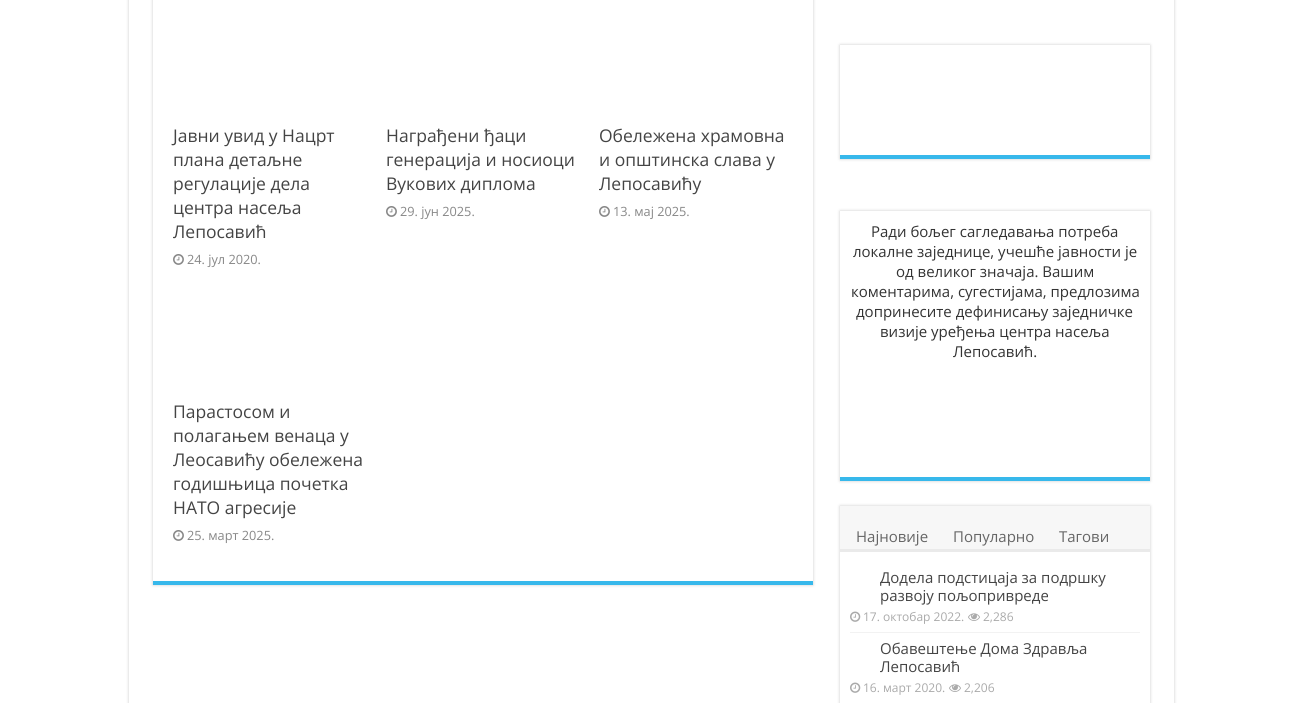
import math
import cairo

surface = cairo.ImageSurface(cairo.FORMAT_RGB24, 1303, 703)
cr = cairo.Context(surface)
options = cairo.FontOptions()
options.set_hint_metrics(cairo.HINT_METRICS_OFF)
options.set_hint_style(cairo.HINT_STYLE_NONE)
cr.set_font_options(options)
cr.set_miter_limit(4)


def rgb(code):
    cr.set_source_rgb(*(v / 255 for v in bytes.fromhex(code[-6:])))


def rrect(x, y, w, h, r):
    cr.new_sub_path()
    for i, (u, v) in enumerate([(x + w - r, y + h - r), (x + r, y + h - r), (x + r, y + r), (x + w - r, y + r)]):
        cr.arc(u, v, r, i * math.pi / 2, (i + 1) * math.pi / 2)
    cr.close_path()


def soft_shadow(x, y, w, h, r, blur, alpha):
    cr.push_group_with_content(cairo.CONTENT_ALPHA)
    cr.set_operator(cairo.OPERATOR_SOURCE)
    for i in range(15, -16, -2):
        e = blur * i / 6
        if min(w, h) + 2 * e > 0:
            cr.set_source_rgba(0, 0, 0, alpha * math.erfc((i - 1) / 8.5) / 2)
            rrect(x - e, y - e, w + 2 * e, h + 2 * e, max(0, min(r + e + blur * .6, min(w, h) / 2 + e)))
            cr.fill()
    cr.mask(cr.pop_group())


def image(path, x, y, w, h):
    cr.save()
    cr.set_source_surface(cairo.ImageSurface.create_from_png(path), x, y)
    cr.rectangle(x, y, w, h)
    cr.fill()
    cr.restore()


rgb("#ffffff")
cr.paint()
cr.save()
cr.set_fill_rule(cairo.FILL_RULE_EVEN_ODD)
cr.new_path()
cr.move_to(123, 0)
cr.line_to(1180, 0)
cr.line_to(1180, 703)
cr.line_to(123, 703)
cr.close_path()
cr.move_to(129, -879)
cr.line_to(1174, -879)
cr.line_to(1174, 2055)
cr.line_to(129, 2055)
cr.close_path()
cr.clip()
rgb("#cacaca")
soft_shadow(129, -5, 1045, 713, 0, 1.5, 1)
cr.restore()
cr.save()
cr.set_fill_rule(cairo.FILL_RULE_EVEN_ODD)
cr.new_path()
cr.move_to(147, 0)
cr.line_to(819, 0)
cr.line_to(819, 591)
cr.line_to(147, 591)
cr.close_path()
cr.move_to(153, -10)
cr.line_to(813, -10)
cr.line_to(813, 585)
cr.line_to(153, 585)
cr.close_path()
cr.clip()
rgb("#cacaca")
soft_shadow(153, -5, 660, 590, 0, 1.5, 1)
cr.restore()
rgb("#37b8eb")
cr.rectangle(153, 581, 660, 4)
cr.fill()
image("img/1.png", 173, 254, 11, 11)
image("img/1.png", 386, 206, 11, 11)
image("img/1.png", 599, 206, 11, 11)
image("img/1.png", 173, 530, 11, 11)
cr.save()
cr.set_fill_rule(cairo.FILL_RULE_EVEN_ODD)
cr.new_path()
cr.move_to(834, 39)
cr.line_to(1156, 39)
cr.line_to(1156, 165)
cr.line_to(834, 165)
cr.close_path()
cr.move_to(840, 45)
cr.line_to(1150, 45)
cr.line_to(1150, 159)
cr.line_to(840, 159)
cr.close_path()
cr.clip()
rgb("#cacaca")
soft_shadow(840, 45, 310, 114, 0, 1.5, 1)
cr.restore()
cr.rectangle(840, 155, 310, 4)
cr.fill()
cr.save()
cr.set_fill_rule(cairo.FILL_RULE_EVEN_ODD)
cr.new_path()
cr.move_to(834, 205)
cr.line_to(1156, 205)
cr.line_to(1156, 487)
cr.line_to(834, 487)
cr.close_path()
cr.move_to(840, 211)
cr.line_to(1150, 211)
cr.line_to(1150, 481)
cr.line_to(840, 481)
cr.close_path()
cr.clip()
rgb("#cacaca")
soft_shadow(840, 211, 310, 270, 0, 1.5, 1)
cr.restore()
cr.rectangle(840, 477, 310, 4)
cr.fill()
cr.save()
cr.set_fill_rule(cairo.FILL_RULE_EVEN_ODD)
cr.new_path()
cr.move_to(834, 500)
cr.line_to(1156, 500)
cr.line_to(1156, 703)
cr.line_to(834, 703)
cr.close_path()
cr.move_to(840, 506)
cr.line_to(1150, 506)
cr.line_to(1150, 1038)
cr.line_to(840, 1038)
cr.close_path()
cr.clip()
rgb("#cacaca")
soft_shadow(840, 506, 310, 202, 0, 1.5, 1)
cr.restore()
for x, y, w, h, color in [
    (840, 506, 310, 43, "#f7f7f7"),
    (840, 549, 310, 3, "#eaeaea"),
    (850, 632, 290, 1, "#f2f2f2"),
]:
    rgb(color)
    cr.rectangle(x, y, w, h)
    cr.fill()
image("img/2.png", 850, 611, 11, 11)
image("img/3.png", 968, 613, 12, 8)
image("img/2.png", 850, 682, 11, 11)
image("img/3.png", 949, 684, 12, 8)
cr.select_font_face("Open Sans")
cr.set_font_size(17.5)
rgb("#444444")
for x, y, s in [
    (173, 142, "Јавни увид у Нацрт"),
    (173, 166, "плана детаљне"),
    (173, 190, "регулације дела"),
    (173, 214, "центра насеља"),
    (173, 238, "Лепосавић"),
]:
    cr.move_to(x, y)
    cr.show_text(s)
cr.set_font_size(12.75)
rgb("#888888")
cr.move_to(187, 264)
cr.show_text("24. јул 2020.")
cr.set_font_size(17.5)
rgb("#444444")
for x, y, s in [
    (386, 142, "Награђени ђаци"),
    (386, 166, "генерација и носиоци"),
    (386, 190, "Вукових диплома"),
]:
    cr.move_to(x, y)
    cr.show_text(s)
cr.set_font_size(12.75)
rgb("#888888")
cr.move_to(400, 216)
cr.show_text("29. јун 2025.")
cr.set_font_size(17.5)
rgb("#444444")
for x, y, s in [
    (599, 142, "Обележена храмовна"),
    (599, 166, "и општинска слава у"),
    (599, 190, "Лепосавићу"),
]:
    cr.move_to(x, y)
    cr.show_text(s)
cr.set_font_size(12.75)
rgb("#888888")
cr.move_to(613, 216)
cr.show_text("13. мај 2025.")
cr.set_font_size(17.5)
rgb("#444444")
for x, y, s in [
    (173, 418, "Парастосом и"),
    (173, 442, "полагањем венаца у"),
    (173, 466, "Леосавићу обележена"),
    (173, 490, "годишњица почетка"),
    (173, 514, "НАТО агресије"),
]:
    cr.move_to(x, y)
    cr.show_text(s)
cr.set_font_size(12.75)
rgb("#888888")
cr.move_to(187, 540)
cr.show_text("25. март 2025.")
cr.set_font_size(15)
rgb("#333333")
for x, y, s in [
    (871, 237, "Ради бољег сагледавања потреба"),
    (853, 257, "локалне заједнице, учешће јавности је"),
    (896, 277, "од великог значаја. Вашим"),
    (851, 297, "коментарима, сугестијама, предлозима"),
    (856, 317, "допринесите дефинисању заједничке"),
    (880, 337, "визије уређења центра насеља"),
    (953, 357, "Лепосавић."),
]:
    cr.move_to(x, y)
    cr.show_text(s)
rgb("#666666")
for x, y, s in [
    (856, 542, "Најновије"),
    (953, 542, "Популарно"),
    (1059, 542, "Тагови"),
]:
    cr.move_to(x, y)
    cr.show_text(s)
rgb("#444444")
cr.move_to(880, 583)
cr.show_text("Додела подстицаја за подршку")
cr.move_to(880, 601)
cr.show_text("развоју пољопривреде")
cr.set_font_size(12)
rgb("#aaaaaa")
cr.move_to(863, 621)
cr.show_text("17. октобар 2022.")
cr.move_to(983, 621)
cr.show_text("2,286")
cr.set_font_size(15)
rgb("#444444")
cr.move_to(880, 654)
cr.show_text("Обавештење Дома Здравља")
cr.move_to(880, 672)
cr.show_text("Лепосавић")
cr.set_font_size(12)
rgb("#aaaaaa")
cr.move_to(863, 692)
cr.show_text("16. март 2020.")
cr.move_to(964, 692)
cr.show_text("2,206")
surface.write_to_png("page.png")
